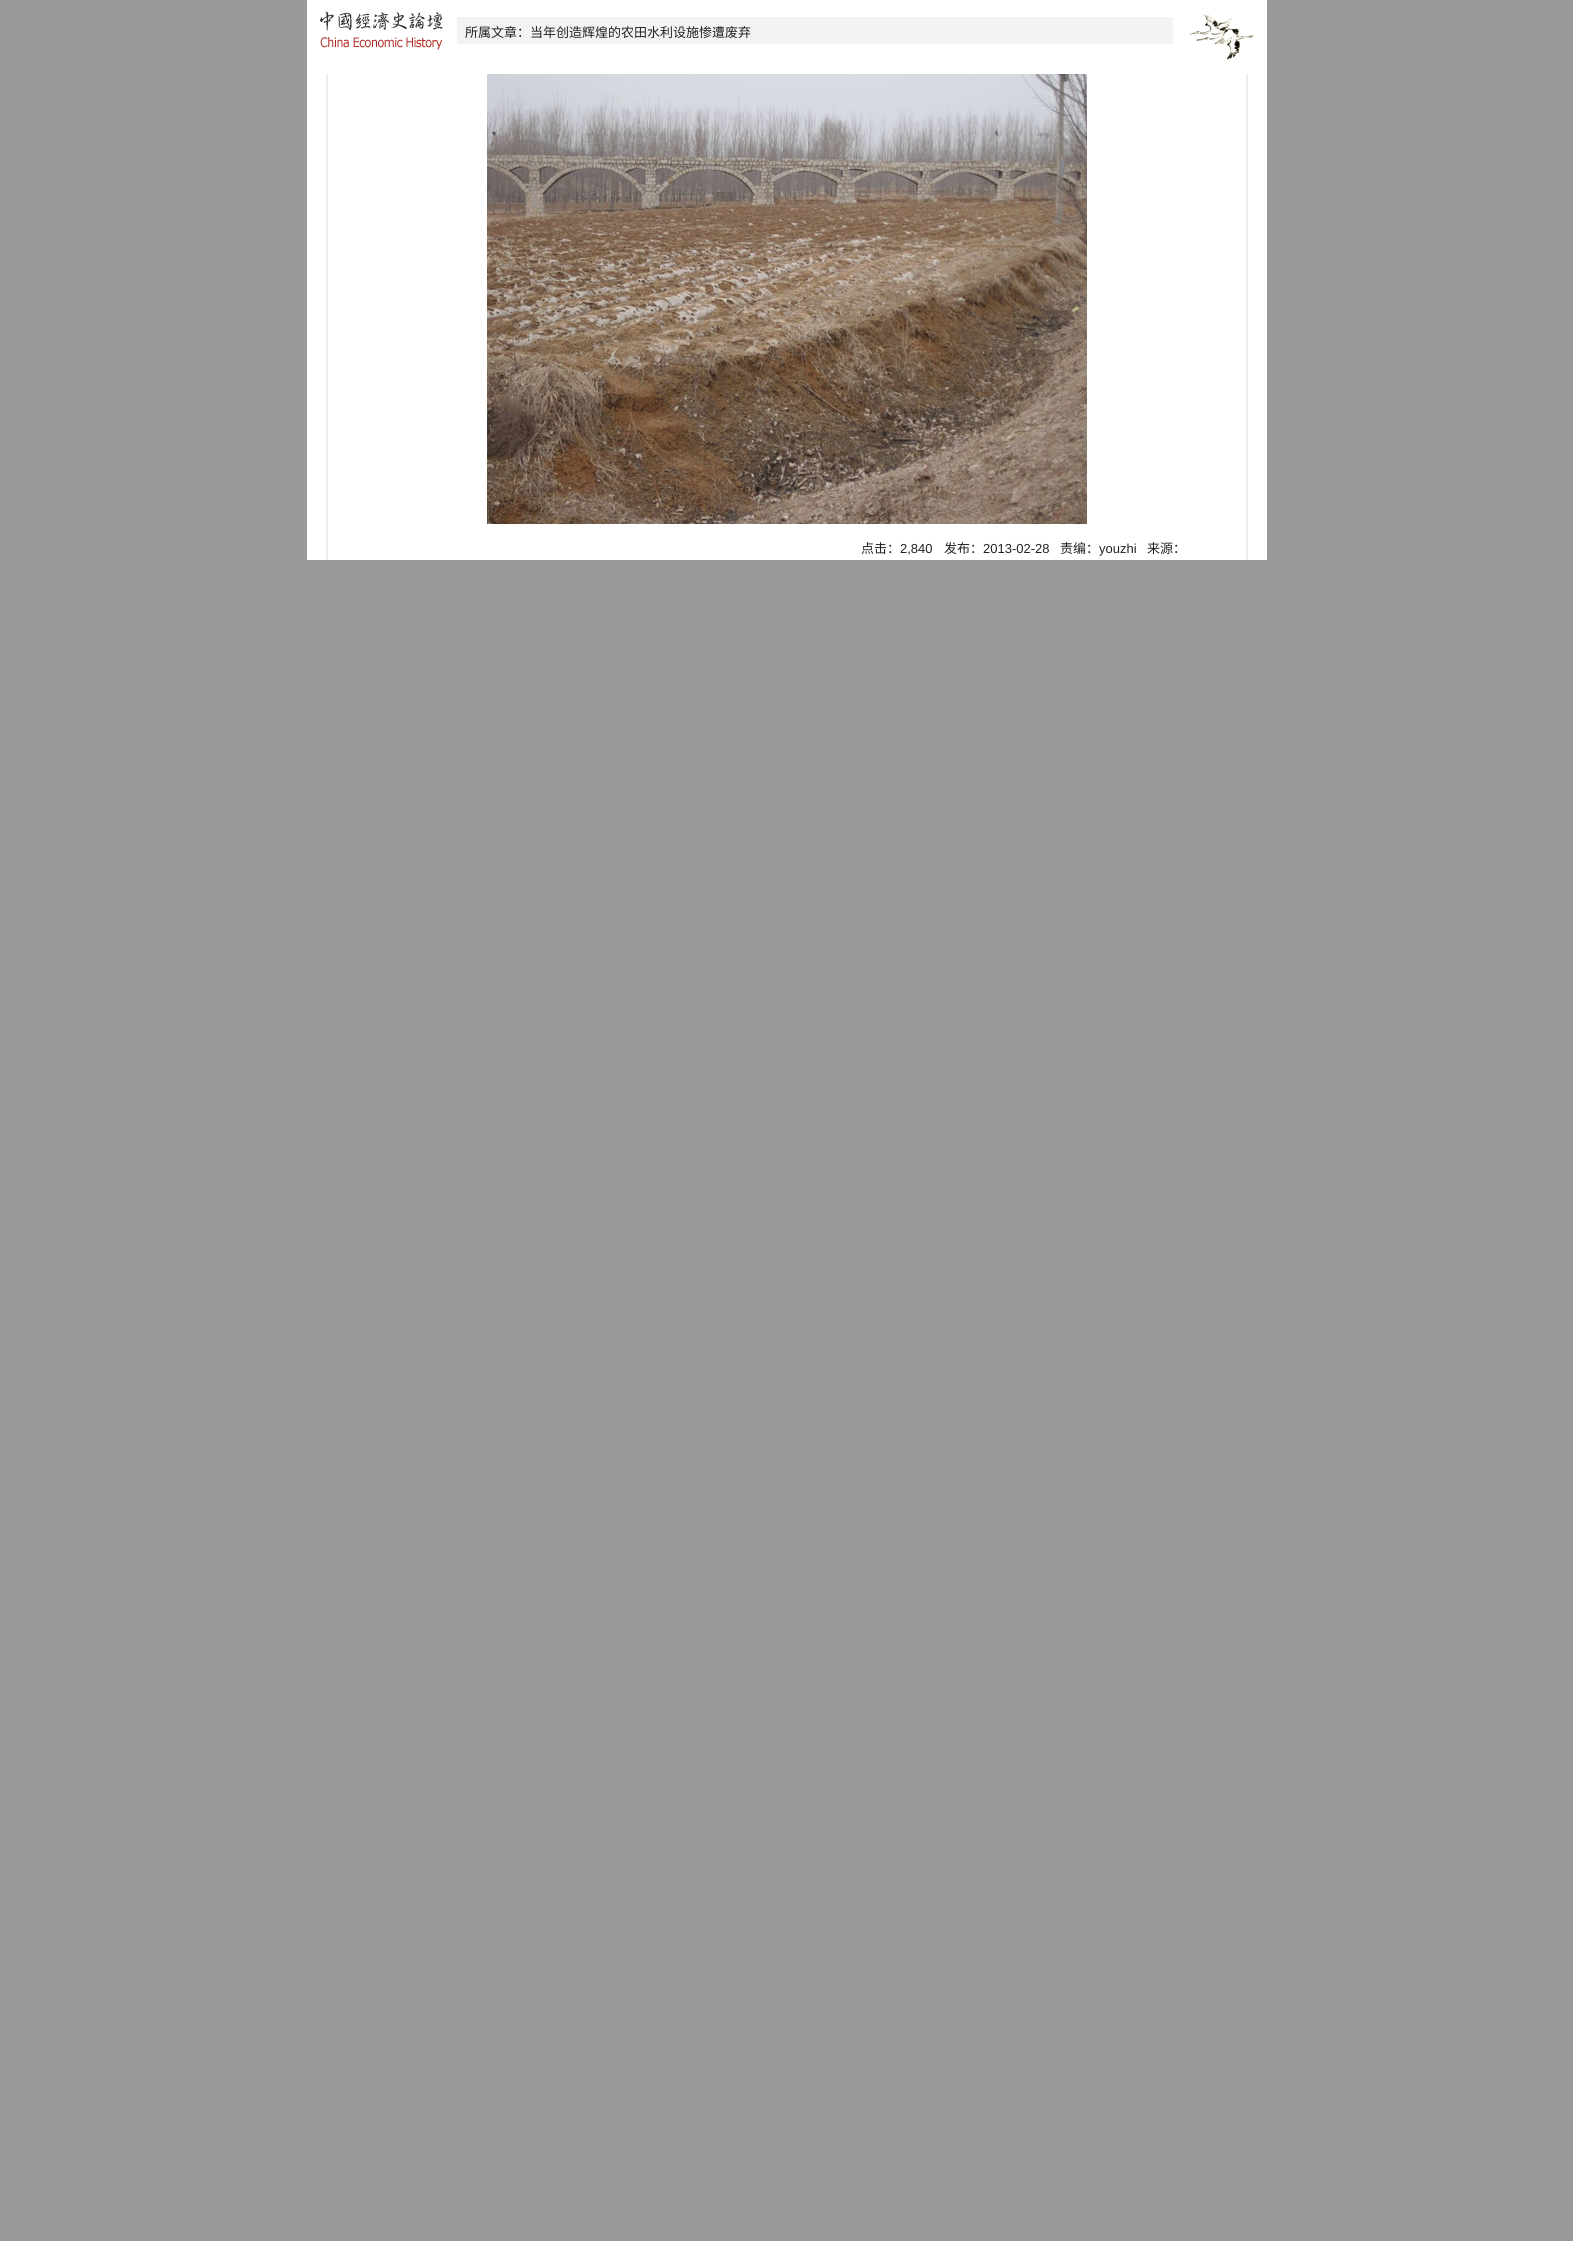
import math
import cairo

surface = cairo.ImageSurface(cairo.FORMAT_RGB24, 1573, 2241)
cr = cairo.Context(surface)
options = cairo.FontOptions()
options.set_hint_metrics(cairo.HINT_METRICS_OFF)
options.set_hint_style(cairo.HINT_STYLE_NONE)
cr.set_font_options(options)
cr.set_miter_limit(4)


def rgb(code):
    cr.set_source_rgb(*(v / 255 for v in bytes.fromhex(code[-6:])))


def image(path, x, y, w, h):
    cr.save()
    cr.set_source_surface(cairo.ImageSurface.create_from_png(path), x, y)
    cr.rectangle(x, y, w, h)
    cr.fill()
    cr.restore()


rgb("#999999")
cr.paint()
rgb("#ffffff")
cr.rectangle(307, 0, 960, 560)
cr.fill()
image("img/1.png", 320, 11, 123, 39)
rgb("#f3f3f3")
cr.rectangle(457, 17, 716, 27)
cr.fill()
image("img/2.png", 1189, 14, 66, 46)
rgb("#eeeeee")
cr.rectangle(1246, 74, 2, 486)
cr.fill()
cr.rectangle(326, 74, 2, 486)
cr.fill()
image("img/3.png", 487, 74, 600, 450)
cr.select_font_face("Noto Sans CJK SC")
cr.set_font_size(13)
rgb("#222222")
cr.move_to(465, 37)
cr.show_text("所属文章：当年创造辉煌的农田水利设施惨遭废弃")
cr.move_to(861, 553)
cr.show_text("点击：")
cr.select_font_face("Liberation Sans")
cr.move_to(900, 553)
cr.show_text("2,840")
cr.select_font_face("Noto Sans CJK SC")
cr.move_to(944, 553)
cr.show_text("发布：")
cr.select_font_face("Liberation Sans")
cr.move_to(983, 553)
cr.show_text("2013-02-28")
cr.select_font_face("Noto Sans CJK SC")
cr.move_to(1060, 553)
cr.show_text("责编：")
cr.select_font_face("Liberation Sans")
cr.move_to(1099, 553)
cr.show_text("youzhi")
cr.select_font_face("Noto Sans CJK SC")
cr.move_to(1147, 553)
cr.show_text("来源：")
surface.write_to_png("page.png")
